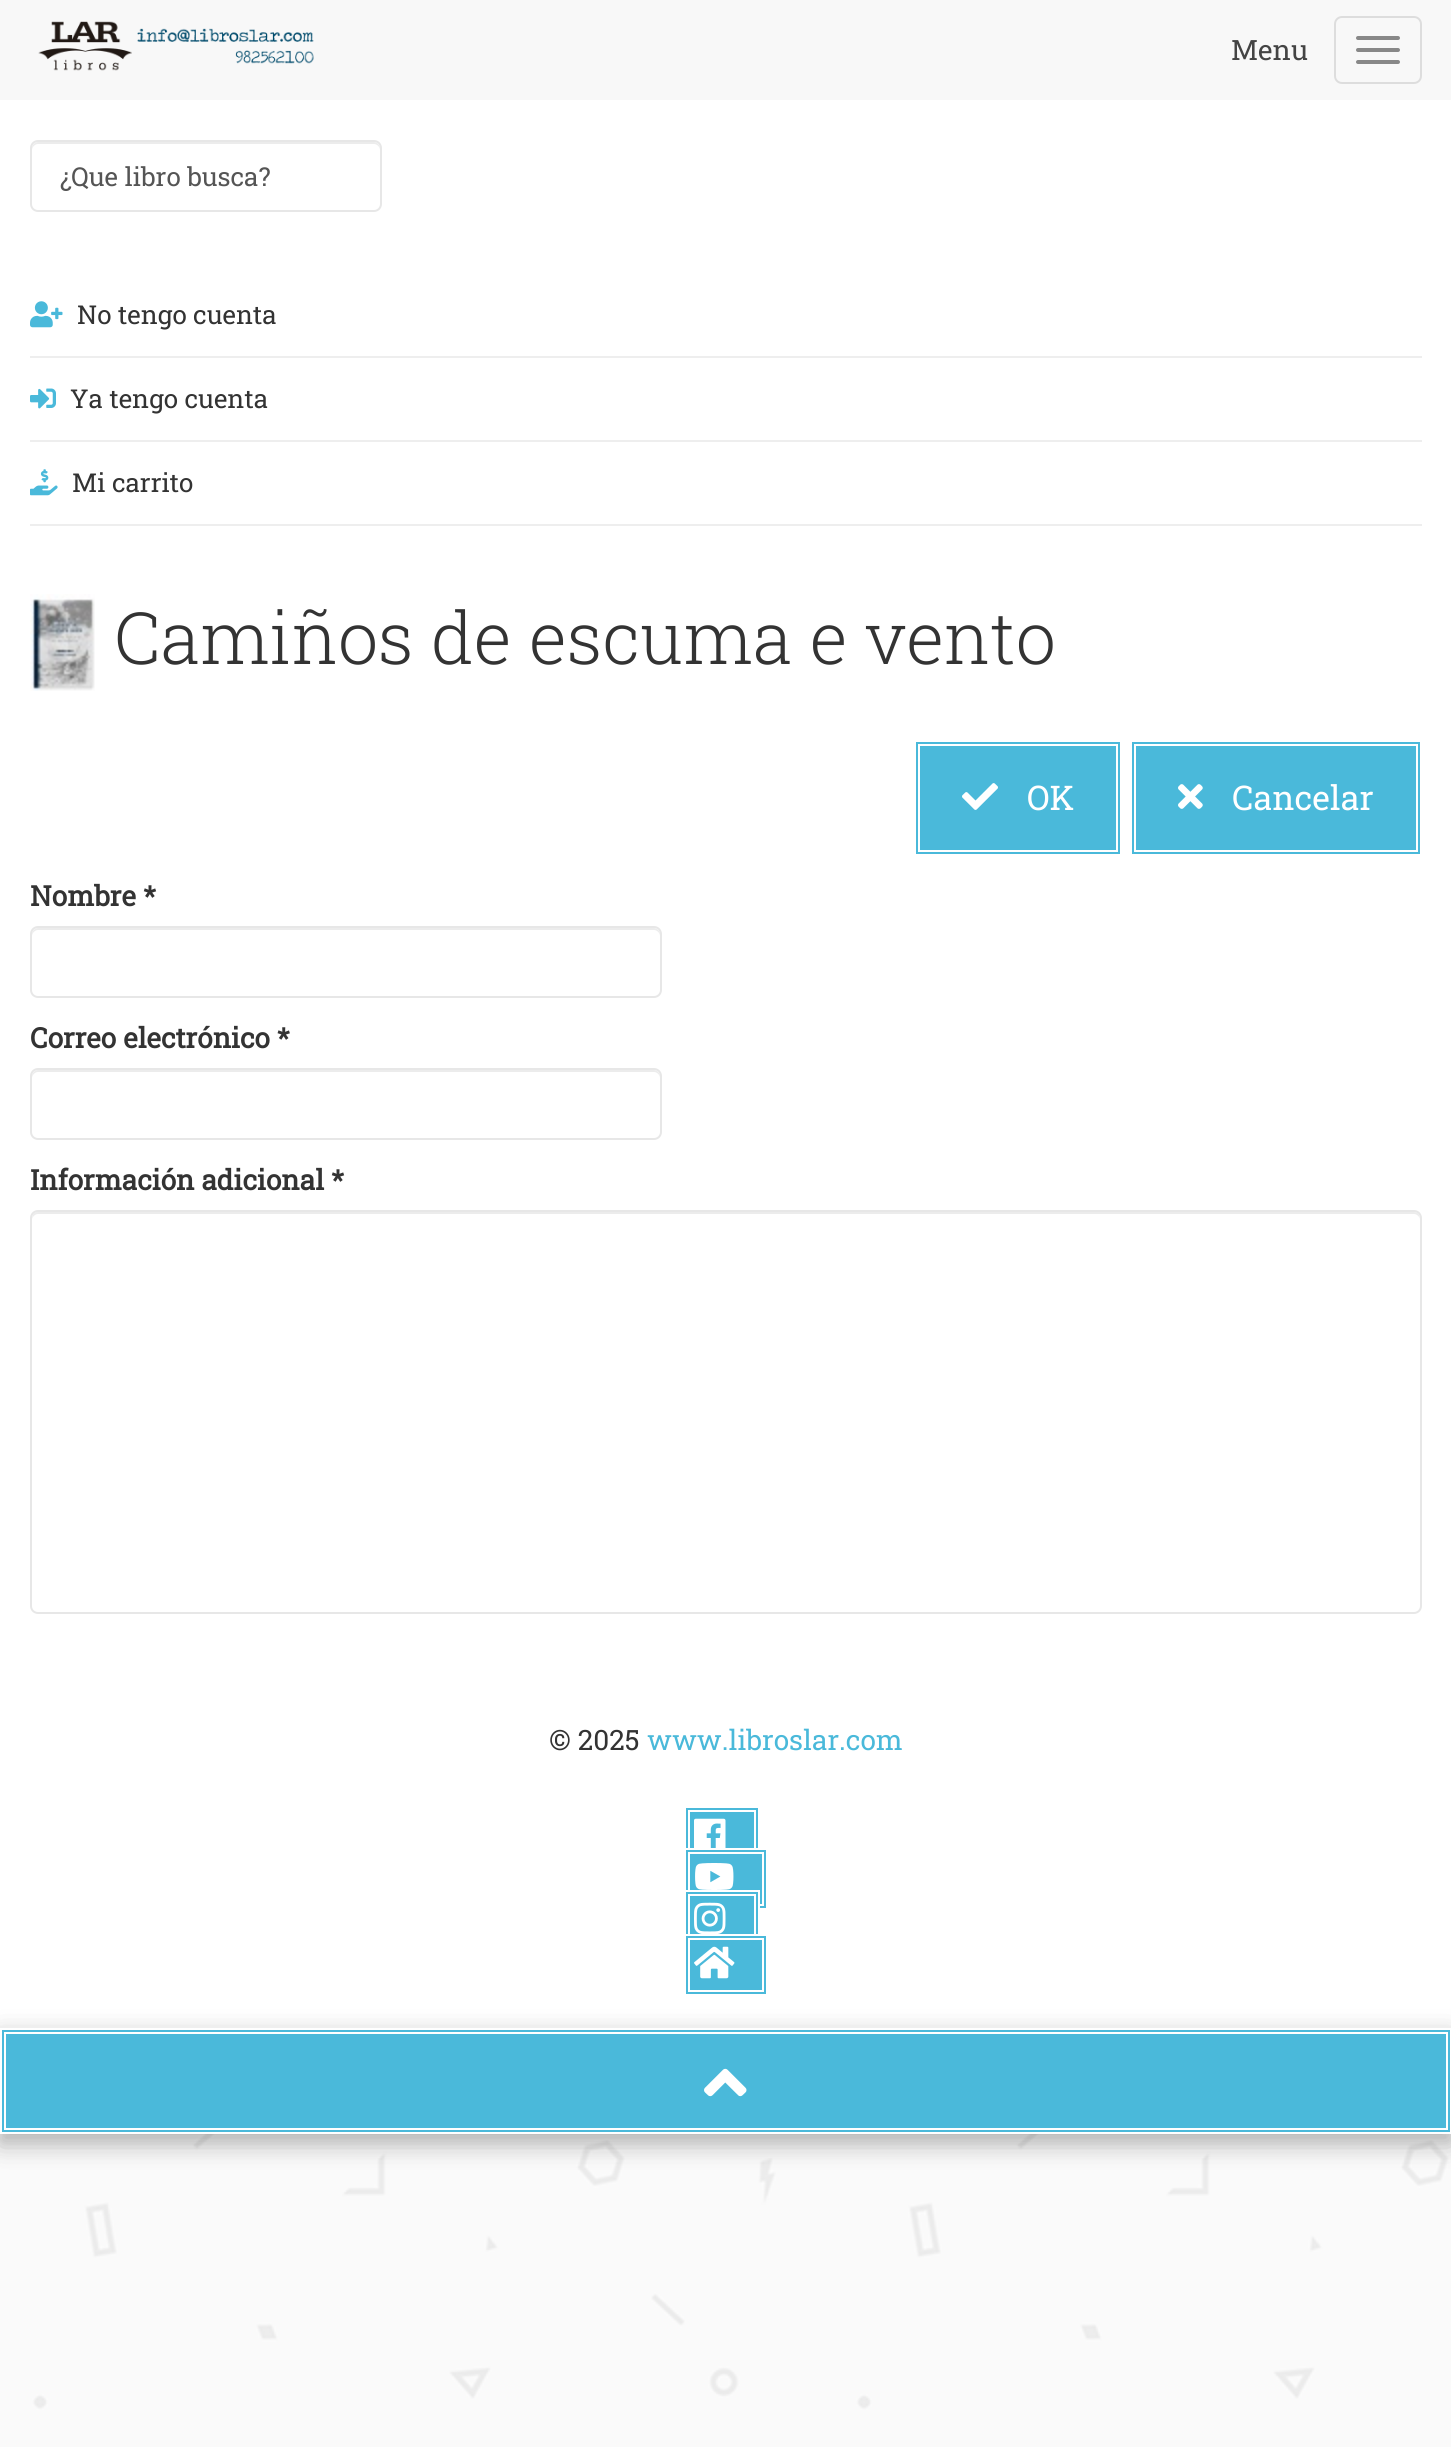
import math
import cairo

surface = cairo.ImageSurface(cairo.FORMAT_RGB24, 1451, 2447)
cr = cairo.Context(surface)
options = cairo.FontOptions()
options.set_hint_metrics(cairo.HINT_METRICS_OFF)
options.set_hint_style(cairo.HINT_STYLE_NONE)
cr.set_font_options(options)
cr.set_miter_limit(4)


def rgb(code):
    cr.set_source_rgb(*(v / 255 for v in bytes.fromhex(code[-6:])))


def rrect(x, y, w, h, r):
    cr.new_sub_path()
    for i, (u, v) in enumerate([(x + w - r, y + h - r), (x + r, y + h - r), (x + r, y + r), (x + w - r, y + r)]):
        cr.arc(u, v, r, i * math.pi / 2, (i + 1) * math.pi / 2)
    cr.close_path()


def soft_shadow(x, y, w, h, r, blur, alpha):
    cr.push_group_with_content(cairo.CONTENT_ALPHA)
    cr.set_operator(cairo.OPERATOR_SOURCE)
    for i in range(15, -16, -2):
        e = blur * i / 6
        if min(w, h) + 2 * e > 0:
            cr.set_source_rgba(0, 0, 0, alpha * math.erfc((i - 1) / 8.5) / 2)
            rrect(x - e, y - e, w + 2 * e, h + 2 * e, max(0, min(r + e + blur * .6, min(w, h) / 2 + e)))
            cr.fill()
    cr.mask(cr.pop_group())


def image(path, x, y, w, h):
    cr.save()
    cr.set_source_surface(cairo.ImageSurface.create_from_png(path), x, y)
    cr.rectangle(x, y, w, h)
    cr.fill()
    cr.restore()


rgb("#ffffff")
cr.paint()
image("img/1.png", 0, 2134, 1451, 313)
rgb("#f8f8f8")
cr.rectangle(0, 0, 1451, 100)
cr.fill()
image("img/2.png", 38, 21, 276, 50)
rrect(1335, 17, 86, 66, 7)
rgb("#dddddd")
cr.stroke()
rgb("#888888")
rrect(1356, 36, 44, 4, 2)
cr.fill()
rrect(1356, 48, 44, 4, 2)
cr.fill()
rrect(1356, 60, 44, 4, 2)
cr.fill()
rgb("#ececec")
cr.new_path()
cr.move_to(38, 144)
cr.line_to(374, 144)
cr.curve_to(377, 144, 380, 147, 380, 150)
cr.line_to(380, 148)
cr.curve_to(380, 145, 377, 142, 374, 142)
cr.line_to(38, 142)
cr.curve_to(35, 142, 32, 145, 32, 148)
cr.line_to(32, 150)
cr.curve_to(32, 147, 35, 144, 38, 144)
cr.close_path()
cr.fill()
rrect(31, 141, 350, 70, 7)
rgb("#e7e7e7")
cr.stroke()
rgb("#eeeeee")
cr.rectangle(30, 356, 1392, 2)
cr.fill()
image("img/3.png", 30, 301, 33, 27)
cr.rectangle(30, 440, 1392, 2)
cr.fill()
image("img/4.png", 30, 388, 26, 21)
cr.rectangle(30, 524, 1392, 2)
cr.fill()
image("img/5.png", 30, 469, 28, 27)
image("img/6.png", 30, 594, 65, 97)
rgb("#4ab9da")
cr.rectangle(916, 742, 204, 112)
cr.fill()
cr.rectangle(919, 745, 198, 106)
rgb("#ffffff")
cr.stroke()
image("img/7.png", 962, 783, 36, 27)
rgb("#4ab9da")
cr.rectangle(1132, 742, 288, 112)
cr.fill()
cr.rectangle(1135, 745, 282, 106)
rgb("#ffffff")
cr.stroke()
image("img/8.png", 1178, 784, 25, 25)
rgb("#ececec")
cr.new_path()
cr.move_to(38, 930)
cr.line_to(654, 930)
cr.curve_to(657, 930, 660, 933, 660, 936)
cr.line_to(660, 934)
cr.curve_to(660, 931, 657, 928, 654, 928)
cr.line_to(38, 928)
cr.curve_to(35, 928, 32, 931, 32, 934)
cr.line_to(32, 936)
cr.curve_to(32, 933, 35, 930, 38, 930)
cr.close_path()
cr.fill()
rrect(31, 927, 630, 70, 7)
rgb("#e7e7e7")
cr.stroke()
rgb("#ececec")
cr.new_path()
cr.move_to(38, 1072)
cr.line_to(654, 1072)
cr.curve_to(657, 1072, 660, 1075, 660, 1078)
cr.line_to(660, 1076)
cr.curve_to(660, 1073, 657, 1070, 654, 1070)
cr.line_to(38, 1070)
cr.curve_to(35, 1070, 32, 1073, 32, 1076)
cr.line_to(32, 1078)
cr.curve_to(32, 1075, 35, 1072, 38, 1072)
cr.close_path()
cr.fill()
rrect(31, 1069, 630, 70, 7)
rgb("#e7e7e7")
cr.stroke()
rgb("#ececec")
cr.new_path()
cr.move_to(38, 1214)
cr.line_to(1414, 1214)
cr.curve_to(1417, 1214, 1420, 1217, 1420, 1220)
cr.curve_to(1420, 1216, 1419, 1212, 1414, 1212)
cr.line_to(38, 1212)
cr.curve_to(33, 1212, 32, 1216, 32, 1220)
cr.curve_to(32, 1217, 35, 1214, 38, 1214)
cr.close_path()
cr.fill()
rrect(31, 1211, 1390, 402, 7)
rgb("#e7e7e7")
cr.stroke()
rgb("#4ab9da")
cr.rectangle(686, 1808, 72, 40)
cr.fill()
cr.rectangle(689, 1811, 66, 52)
rgb("#ffffff")
cr.stroke()
image("img/9.png", 694, 1818, 32, 30)
rgb("#4ab9da")
cr.rectangle(686, 1850, 80, 58)
cr.fill()
cr.rectangle(689, 1853, 74, 52)
rgb("#ffffff")
cr.stroke()
image("img/10.png", 695, 1863, 39, 27)
rgb("#4ab9da")
cr.rectangle(686, 1892, 72, 42)
cr.fill()
cr.rectangle(685, 1891, 74, 60)
rgb("#ffffff")
cr.stroke()
cr.rectangle(689, 1895, 66, 52)
cr.stroke()
image("img/11.png", 694, 1902, 32, 32)
rgb("#4ab9da")
cr.rectangle(686, 1936, 80, 58)
cr.fill()
cr.rectangle(689, 1939, 74, 52)
rgb("#ffffff")
cr.stroke()
image("img/12.png", 694, 1946, 41, 33)
rgb("#000000")
soft_shadow(0, 2036, 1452, 106, 0, 15, 0.15)
soft_shadow(0, 2038, 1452, 106, 0, 11, 0.18)
rgb("#4ab9da")
cr.rectangle(1, 2029, 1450, 104)
cr.fill_preserve()
rgb("#ffffff")
cr.stroke()
cr.rectangle(5, 2033, 1442, 96)
cr.stroke()
image("img/13.png", 704, 2068, 43, 29)
cr.select_font_face("Roboto Slab")
cr.set_font_size(28)
rgb("#444444")
cr.move_to(1231, 60)
cr.show_text("Menu")
cr.set_font_size(26)
rgb("#555555")
cr.move_to(60, 186)
cr.show_text("¿Que libro busca?")
rgb("#333333")
for x, y, s in [
    (77, 324, "No tengo cuenta"),
    (70, 408, "Ya tengo cuenta"),
    (72, 492, "Mi carrito"),
]:
    cr.move_to(x, y)
    cr.show_text(s)
cr.select_font_face("Roboto Slab Light")
cr.set_font_size(72)
cr.move_to(114, 664)
cr.show_text("Camiños de escuma e vento")
cr.select_font_face("Roboto Slab")
cr.set_font_size(34)
rgb("#ffffff")
cr.move_to(1027, 810)
cr.show_text("OK")
cr.move_to(1232, 810)
cr.show_text("Cancelar")
cr.select_font_face("Roboto Slab", cairo.FONT_SLANT_NORMAL, cairo.FONT_WEIGHT_BOLD)
cr.set_font_size(28)
rgb("#333333")
for x, y, s in [
    (30, 906, "Nombre *"),
    (30, 1048, "Correo electrónico *"),
    (30, 1190, "Información adicional *"),
]:
    cr.move_to(x, y)
    cr.show_text(s)
cr.select_font_face("Roboto Slab")
cr.move_to(549, 1750)
cr.show_text("© 2025")
rgb("#4ab9da")
cr.move_to(647, 1750)
cr.show_text("www.libroslar.com")
surface.write_to_png("page.png")
